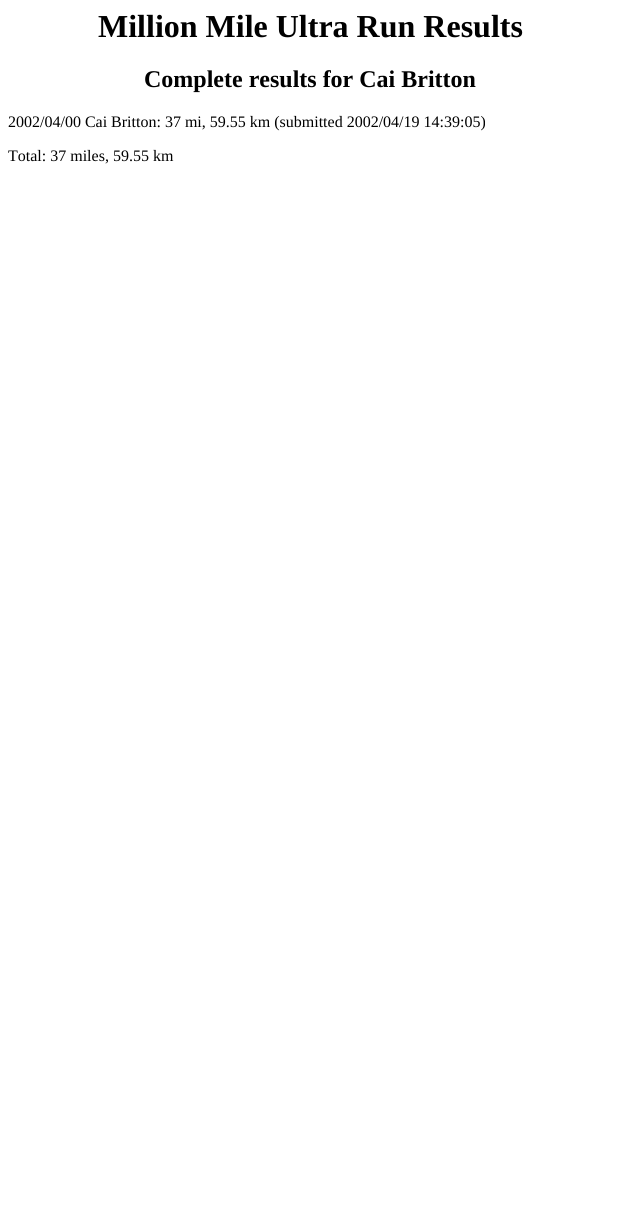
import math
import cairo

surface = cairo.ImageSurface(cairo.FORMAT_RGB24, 620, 1226)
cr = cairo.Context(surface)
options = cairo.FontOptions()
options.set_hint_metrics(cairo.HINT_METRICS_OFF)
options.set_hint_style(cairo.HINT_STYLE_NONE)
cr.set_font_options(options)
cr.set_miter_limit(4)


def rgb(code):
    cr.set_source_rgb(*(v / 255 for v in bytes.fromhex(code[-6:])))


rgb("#ffffff")
cr.paint()
cr.select_font_face("Liberation Serif", cairo.FONT_SLANT_NORMAL, cairo.FONT_WEIGHT_BOLD)
cr.set_font_size(32)
rgb("#000000")
cr.move_to(98, 37)
cr.show_text("Million Mile Ultra Run Results")
cr.set_font_size(24)
cr.move_to(144, 87)
cr.show_text("Complete results for Cai Britton")
cr.select_font_face("Liberation Serif")
cr.set_font_size(16)
cr.move_to(8, 127)
cr.show_text("2002/04/00 Cai Britton: 37 mi, 59.55 km (submitted 2002/04/19 14:39:05)")
cr.move_to(8, 161)
cr.show_text("Total: 37 miles, 59.55 km")
surface.write_to_png("page.png")
